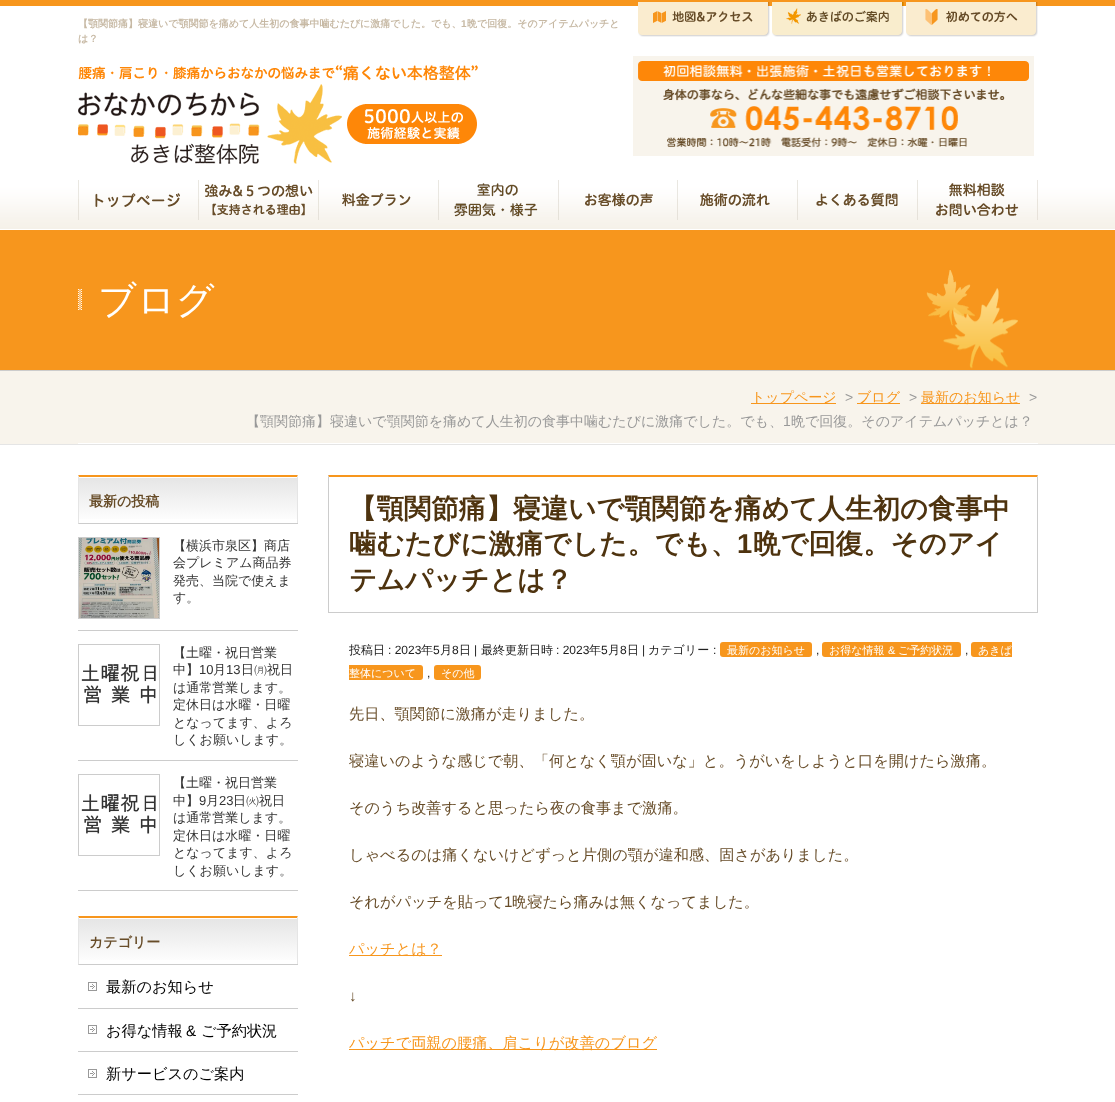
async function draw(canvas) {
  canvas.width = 1115;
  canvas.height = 1102;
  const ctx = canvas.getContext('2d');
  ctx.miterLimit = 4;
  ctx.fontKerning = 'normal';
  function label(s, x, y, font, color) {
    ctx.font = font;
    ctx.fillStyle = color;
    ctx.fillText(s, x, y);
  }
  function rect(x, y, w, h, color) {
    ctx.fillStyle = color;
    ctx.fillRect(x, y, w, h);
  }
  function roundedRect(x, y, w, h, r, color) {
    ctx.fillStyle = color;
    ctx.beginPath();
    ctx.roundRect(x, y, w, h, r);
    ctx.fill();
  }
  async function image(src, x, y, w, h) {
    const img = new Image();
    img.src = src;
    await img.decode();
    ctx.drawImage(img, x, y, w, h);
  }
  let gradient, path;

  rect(0, 0, 1115, 1102, '#fff');
  await image('assets/img1.png', 0, 2, 1115, 228);
  rect(0, 0, 1115, 2, '#f7961d');
  label('【顎関節痛】寝違いで顎関節を痛めて人生初の食事中噛むたびに激痛でした。でも、', 78, 27, 'bold 10px WenQuanYi Zen Hei', '#c7b9a4');
  label('1', 461, 27, 'bold 10px Liberation Sans', '#c7b9a4');
  label('晩で回復。そのアイテムパッチと', 467, 27, 'bold 10px WenQuanYi Zen Hei', '#c7b9a4');
  label('は？', 78, 42, 'bold 10px WenQuanYi Zen Hei', '#c7b9a4');
  await image('assets/img2.png', 638, 2, 132, 35);
  await image('assets/img3.png', 772, 2, 132, 35);
  await image('assets/img4.png', 906, 2, 132, 35);
  await image('assets/img5.png', 78, 65, 400, 99);
  await image('assets/img6.png', 633, 56, 401, 100);
  await image('assets/img7.png', 78, 180, 121, 50);
  await image('assets/img8.png', 199, 180, 120, 50);
  await image('assets/img9.png', 319, 180, 120, 50);
  await image('assets/img10.png', 439, 180, 120, 50);
  await image('assets/img11.png', 559, 180, 119, 50);
  await image('assets/img12.png', 678, 180, 120, 50);
  await image('assets/img13.png', 798, 180, 120, 50);
  await image('assets/img14.png', 918, 180, 120, 50);
  rect(0, 230, 1115, 140, '#f7961d');
  rect(0, 370, 1115, 1, '#ccc');
  await image('assets/img15.png', 78, 289, 4, 21);
  await image('assets/img16.png', 926, 270, 92, 99);
  label('ブログ', 98, 313, '500 38px WenQuanYi Zen Hei', '#fff');
  rect(0, 371, 1115, 73, '#f8f4ec');
  rect(0, 444, 1115, 1, '#e5e5e5');
  rect(78, 443, 960, 1, '#fff');
  rect(751, 403, 85, 1, '#f7961d');
  label('トップページ', 751, 402, '500 14px WenQuanYi Zen Hei', '#f7961d');
  label('>', 845, 402, '14px Liberation Sans', '#999');
  rect(857, 403, 43, 1, '#f7961d');
  label('ブログ', 857, 402, '500 14px WenQuanYi Zen Hei', '#f7961d');
  label('>', 909, 402, '14px Liberation Sans', '#999');
  rect(921, 403, 99, 1, '#f7961d');
  label('最新のお知らせ', 921, 402, '500 14px WenQuanYi Zen Hei', '#f7961d');
  label('>', 1029, 402, '14px Liberation Sans', '#999');
  label('【顎関節痛】寝違いで顎関節を痛めて人生初の食事中噛むたびに激痛でした。でも、', 246, 426, '500 14px WenQuanYi Zen Hei', '#999');
  label('1', 783, 426, '14px Liberation Sans', '#999');
  label('晩で回復。そのアイテムパッチとは？', 791, 426, '500 14px WenQuanYi Zen Hei', '#999');
  gradient = ctx.createLinearGradient(79, 477, 79, 523);
  gradient.addColorStop(0, '#e5e5e5');
  gradient.addColorStop(1, '#fff');
  ctx.fillStyle = gradient;
  ctx.fillRect(79, 478, 218, 41);
  ctx.fillStyle = '#f7961d';
  path = new Path2D('M78 475H298L297 477H79Z');
  ctx.fill(path);
  ctx.fillStyle = '#e5e5e5';
  path = new Path2D('M298 475V524L297 523V477Z');
  ctx.fill(path);
  rect(78, 523, 220, 1, '#ccc');
  ctx.fillStyle = '#e5e5e5';
  path = new Path2D('M78 524V475L79 477V523Z');
  ctx.fill(path);
  label('最新の投稿', 89, 506, 'bold 14px WenQuanYi Zen Hei', '#674c28');
  rect(78, 630, 220, 1, '#ccc');
  ctx.strokeStyle = '#ccc';
  ctx.strokeRect(78.5, 537.5, 81, 81);
  await image('assets/img17.png', 79, 538, 80, 80);
  label('【横浜市泉区】商店', 173, 550, '500 13px WenQuanYi Zen Hei', '#333');
  label('会プレミアム商品券', 173, 567, '500 13px WenQuanYi Zen Hei', '#333');
  label('発売、当院で使えま', 173, 585, '500 13px WenQuanYi Zen Hei', '#333');
  label('す。', 173, 602, '500 13px WenQuanYi Zen Hei', '#333');
  rect(78, 760, 220, 1, '#ccc');
  ctx.strokeRect(78.5, 644.5, 81, 81);
  await image('assets/img18.png', 81, 663, 75, 41);
  label('【土曜・祝日営業', 173, 657, '500 13px WenQuanYi Zen Hei', '#333');
  label('中】', 173, 674, '500 13px WenQuanYi Zen Hei', '#333');
  label('10', 199, 674, '13px Liberation Sans', '#333');
  label('月', 213, 674, '500 13px WenQuanYi Zen Hei', '#333');
  label('13', 226, 674, '13px Liberation Sans', '#333');
  label('日㈪祝日', 241, 674, '500 13px WenQuanYi Zen Hei', '#333');
  label('は通常営業します。', 173, 692, '500 13px WenQuanYi Zen Hei', '#333');
  label('定休日は水曜・日曜', 173, 709, '500 13px WenQuanYi Zen Hei', '#333');
  label('となってます、よろ', 173, 727, '500 13px WenQuanYi Zen Hei', '#333');
  label('しくお願いします。', 173, 744, '500 13px WenQuanYi Zen Hei', '#333');
  rect(78, 890, 220, 1, '#ccc');
  ctx.strokeRect(78.5, 774.5, 81, 81);
  await image('assets/img19.png', 81, 793, 75, 41);
  label('【土曜・祝日営業', 173, 787, '500 13px WenQuanYi Zen Hei', '#333');
  label('中】', 173, 805, '500 13px WenQuanYi Zen Hei', '#333');
  label('9', 199, 805, '13px Liberation Sans', '#333');
  label('月', 206, 805, '500 13px WenQuanYi Zen Hei', '#333');
  label('23', 219, 805, '13px Liberation Sans', '#333');
  label('日㈫祝日', 233, 805, '500 13px WenQuanYi Zen Hei', '#333');
  label('は通常営業します。', 173, 822, '500 13px WenQuanYi Zen Hei', '#333');
  label('定休日は水曜・日曜', 173, 840, '500 13px WenQuanYi Zen Hei', '#333');
  label('となってます、よろ', 173, 857, '500 13px WenQuanYi Zen Hei', '#333');
  label('しくお願いします。', 173, 875, '500 13px WenQuanYi Zen Hei', '#333');
  gradient = ctx.createLinearGradient(79, 918, 79, 964);
  gradient.addColorStop(0, '#e5e5e5');
  gradient.addColorStop(1, '#fff');
  ctx.fillStyle = gradient;
  ctx.fillRect(79, 919, 218, 41);
  ctx.fillStyle = '#f7961d';
  path = new Path2D('M78 916H298L297 918H79Z');
  ctx.fill(path);
  ctx.fillStyle = '#e5e5e5';
  path = new Path2D('M298 916V965L297 964V918Z');
  ctx.fill(path);
  rect(78, 964, 220, 1, '#ccc');
  ctx.fillStyle = '#e5e5e5';
  path = new Path2D('M78 965V916L79 918V964Z');
  ctx.fill(path);
  label('カテゴリー', 89, 947, 'bold 14px WenQuanYi Zen Hei', '#674c28');
  rect(78, 1008, 220, 1, '#ccc');
  await image('assets/img20.png', 88, 982, 9, 9);
  label('最新のお知らせ', 106, 992, '500 15.2px WenQuanYi Zen Hei', '#000');
  rect(78, 1051, 220, 1, '#ccc');
  await image('assets/img20.png', 88, 1025, 9, 9);
  label('お得な情報', 106, 1036, '500 15.2px WenQuanYi Zen Hei', '#000');
  label('&', 186, 1036, '15.2px Liberation Sans', '#000');
  label('ご予約状況', 201, 1036, '500 15.2px WenQuanYi Zen Hei', '#000');
  await image('assets/img20.png', 88, 1069, 9, 9);
  label('新サービスのご案内', 106, 1079, '500 15.2px WenQuanYi Zen Hei', '#000');
  rect(78, 1094, 220, 1, '#ccc');
  ctx.fillStyle = '#f7961d';
  path = new Path2D('M328 475H1038L1037 477H329Z');
  ctx.fill(path);
  ctx.fillStyle = '#ccc';
  path = new Path2D('M1038 475V613L1037 612V477Z');
  ctx.fill(path);
  rect(328, 612, 710, 1, '#ccc');
  path = new Path2D('M328 613V475L329 477V612Z');
  ctx.fill(path);
  label('【顎関節痛】寝違いで顎関節を痛めて人生初の食事中', 349, 518, 'bold 27.4px WenQuanYi Zen Hei', '#4e330f');
  label('噛むたびに激痛でした。でも、', 349, 553, 'bold 27.4px WenQuanYi Zen Hei', '#4e330f');
  label('1', 737, 553, 'bold 27.4px Liberation Sans', '#4e330f');
  label('晩で回復。そのアイ', 753, 553, 'bold 27.4px WenQuanYi Zen Hei', '#4e330f');
  label('テムパッチとは？', 349, 589, 'bold 27.4px WenQuanYi Zen Hei', '#4e330f');
  label('投稿日', 349, 654, '500 12px WenQuanYi Zen Hei', '#212121');
  label(': 2023', 388, 654, '12px Liberation Sans', '#212121');
  label('年', 421, 654, '500 12px WenQuanYi Zen Hei', '#212121');
  label('5', 433, 654, '12px Liberation Sans', '#212121');
  label('月', 440, 654, '500 12px WenQuanYi Zen Hei', '#212121');
  label('8', 452, 654, '12px Liberation Sans', '#212121');
  label('日', 459, 654, '500 12px WenQuanYi Zen Hei', '#212121');
  label('|', 474, 654, '12px Liberation Sans', '#212121');
  label('最終更新日時', 481, 654, '500 12px WenQuanYi Zen Hei', '#212121');
  label(': 2023', 556, 654, '12px Liberation Sans', '#212121');
  label('年', 589, 654, '500 12px WenQuanYi Zen Hei', '#212121');
  label('5', 601, 654, '12px Liberation Sans', '#212121');
  label('月', 608, 654, '500 12px WenQuanYi Zen Hei', '#212121');
  label('8', 620, 654, '12px Liberation Sans', '#212121');
  label('日', 627, 654, '500 12px WenQuanYi Zen Hei', '#212121');
  label('|', 642, 654, '12px Liberation Sans', '#212121');
  label('カテゴリー', 648, 654, '500 12px WenQuanYi Zen Hei', '#212121');
  label(':', 713, 654, '12px Liberation Sans', '#212121');
  roundedRect(720, 642, 92, 15, 3, '#f7961d');
  label('最新のお知らせ', 727, 654, '500 11px WenQuanYi Zen Hei', '#fff');
  label(',', 816, 654, '12px Liberation Sans', '#212121');
  roundedRect(822, 642, 139, 15, 3, '#f7961d');
  label('お得な情報', 829, 654, '500 11px WenQuanYi Zen Hei', '#fff');
  label('&', 888, 654, '11px Liberation Sans', '#fff');
  label('ご予約状況', 898, 654, '500 11px WenQuanYi Zen Hei', '#fff');
  label(',', 965, 654, '12px Liberation Sans', '#212121');
  ctx.fillStyle = '#f7961d';
  ctx.beginPath();
  ctx.roundRect(971, 642, 41, 15, [3, 0, 0, 3]);
  ctx.fill();
  label('あきば', 978, 654, '500 11px WenQuanYi Zen Hei', '#fff');
  ctx.fillStyle = '#f7961d';
  ctx.beginPath();
  ctx.roundRect(349, 665, 74, 15, [0, 3, 3, 0]);
  ctx.fill();
  label('整体について', 349, 677, '500 11px WenQuanYi Zen Hei', '#fff');
  label(',', 427, 677, '12px Liberation Sans', '#212121');
  roundedRect(434, 665, 47, 15, 3, '#f7961d');
  label('その他', 441, 677, '500 11px WenQuanYi Zen Hei', '#fff');
  label('先日、顎関節に激痛が走りました。', 349, 719, '500 15.2px WenQuanYi Zen Hei', '#674c28');
  label('寝違いのような感じで朝、「何となく顎が固いな」と。うがいをしようと口を開けたら激痛。', 349, 766, '500 15.2px WenQuanYi Zen Hei', '#674c28');
  label('そのうち改善すると思ったら夜の食事まで激痛。', 349, 813, '500 15.2px WenQuanYi Zen Hei', '#674c28');
  label('しゃべるのは痛くないけどずっと片側の顎が違和感、固さがありました。', 349, 860, '500 15.2px WenQuanYi Zen Hei', '#674c28');
  label('それがパッチを貼って', 349, 907, '500 15.2px WenQuanYi Zen Hei', '#674c28');
  label('1', 504, 907, '15.2px Liberation Sans', '#674c28');
  label('晩寝たら痛みは無くなってました。', 512, 907, '500 15.2px WenQuanYi Zen Hei', '#674c28');
  rect(349, 955, 93, 1, '#f7961d');
  label('パッチとは？', 349, 954, '500 15.2px WenQuanYi Zen Hei', '#f7961d');
  label('↓', 349, 1001, '15.2px Liberation Sans', '#674c28');
  rect(349, 1049, 308, 1, '#f7961d');
  label('パッチで両親の腰痛、肩こりが改善のブログ', 349, 1048, '500 15.2px WenQuanYi Zen Hei', '#f7961d');
}

draw(document.querySelector('canvas'));
